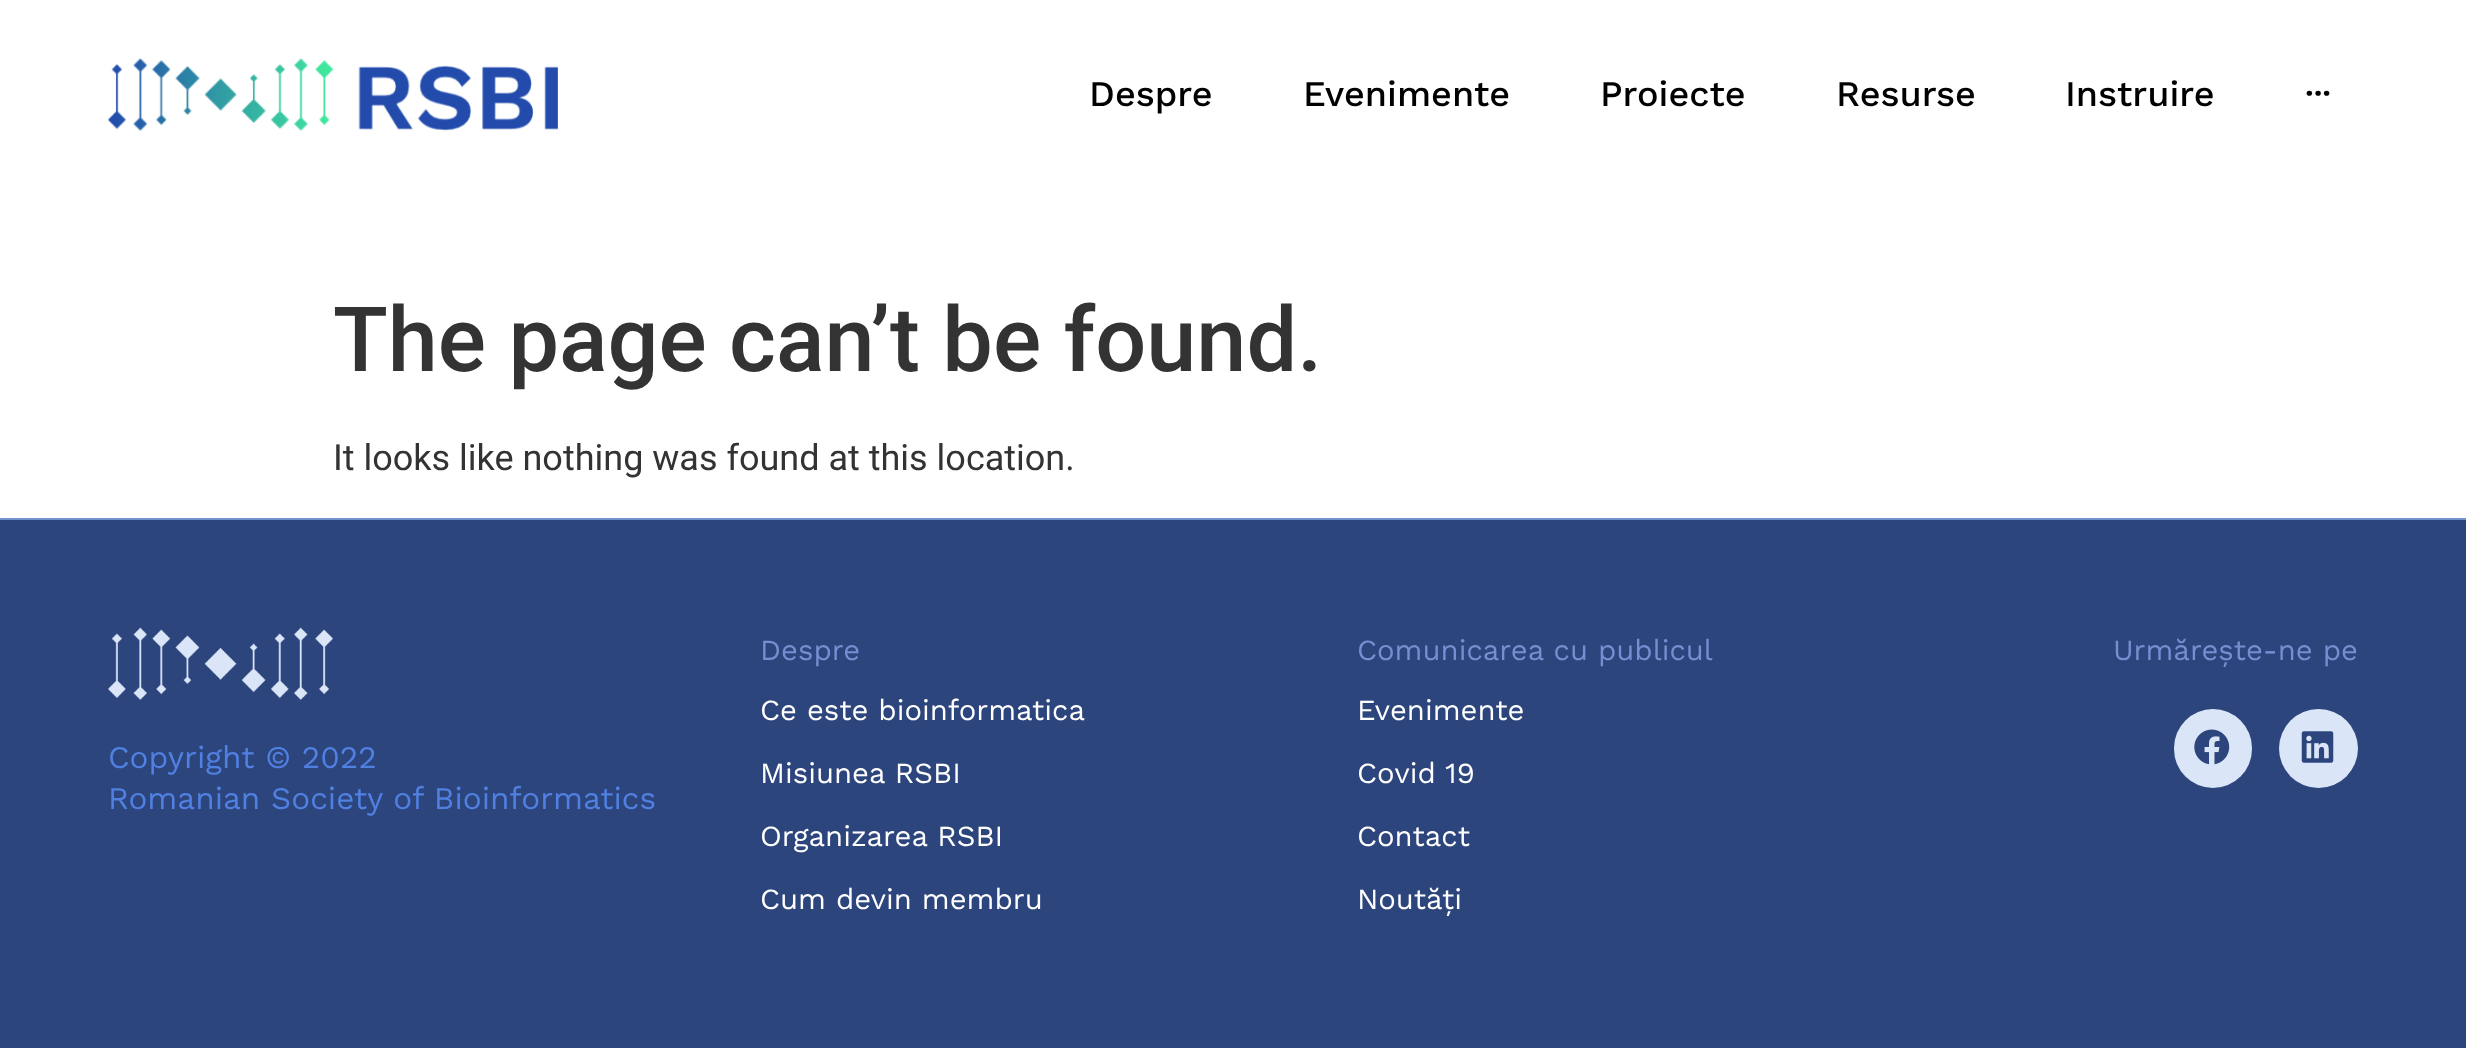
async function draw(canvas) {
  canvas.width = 2466;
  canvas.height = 1048;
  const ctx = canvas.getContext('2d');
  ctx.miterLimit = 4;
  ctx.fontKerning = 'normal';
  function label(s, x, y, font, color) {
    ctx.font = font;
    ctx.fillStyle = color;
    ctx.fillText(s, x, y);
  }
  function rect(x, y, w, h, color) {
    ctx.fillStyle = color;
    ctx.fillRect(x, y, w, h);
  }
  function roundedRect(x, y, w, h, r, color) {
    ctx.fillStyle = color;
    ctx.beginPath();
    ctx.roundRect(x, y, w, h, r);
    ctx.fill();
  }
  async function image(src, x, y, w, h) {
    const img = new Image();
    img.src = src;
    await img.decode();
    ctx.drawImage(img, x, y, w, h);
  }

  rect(0, 0, 2466, 1048, '#fff');
  await image('assets/img1.png', 108, 58, 450, 73);
  label('Despre', 1089, 106, '500 36px Work Sans', '#000');
  label('Evenimente', 1303, 106, '500 36px Work Sans', '#000');
  label('Proiecte', 1600, 106, '500 36px Work Sans', '#000');
  label('Resurse', 1836, 106, '500 36px Work Sans', '#000');
  label('Instruire', 2065, 106, '500 36px Work Sans', '#000');
  label('···', 2305, 106, '500 36px Work Sans', '#000');
  label('The page can’t be found.', 333, 371, '500 90px Roboto', '#333');
  label('It looks like nothing was found at this location.', 333, 470, '36px Roboto', '#333');
  rect(0, 520, 2466, 528, '#2d457d');
  rect(0, 518, 2466, 2, '#7490d1');
  await image('assets/img2.png', 108, 627, 225, 73);
  label('Copyright © 2022', 108, 768, '31.5px Work Sans', '#5080e1');
  label('Romanian Society of Bioinformatics', 108, 809, '31.5px Work Sans', '#5080e1');
  label('Despre', 760, 660, '29.25px Work Sans', '#7490d1');
  label('Ce este bioinformatica', 760, 720, '29.25px Work Sans', '#fff');
  label('Misiunea RSBI', 760, 783, '29.25px Work Sans', '#fff');
  label('Organizarea RSBI', 760, 846, '29.25px Work Sans', '#fff');
  label('Cum devin membru', 760, 909, '29.25px Work Sans', '#fff');
  label('Comunicarea cu publicul', 1357, 660, '29.25px Work Sans', '#7490d1');
  label('Evenimente', 1357, 720, '29.25px Work Sans', '#fff');
  label('Covid 19', 1357, 783, '29.25px Work Sans', '#fff');
  label('Contact', 1357, 846, '29.25px Work Sans', '#fff');
  label('Noutăți', 1357, 909, '29.25px Work Sans', '#fff');
  label('Urmărește-ne pe', 2113, 660, '29.25px Work Sans', '#7490d1');
  roundedRect(2174, 709, 78, 79, 39, '#dae5f8');
  await image('assets/img3.png', 2194, 729, 36, 36);
  ctx.beginPath();
  ctx.arc(2318.5, 748.5, 39.5, 0, 2 * Math.PI);
  ctx.fill();
  await image('assets/img4.png', 2301, 731, 33, 32);
}

draw(document.querySelector('canvas'));
